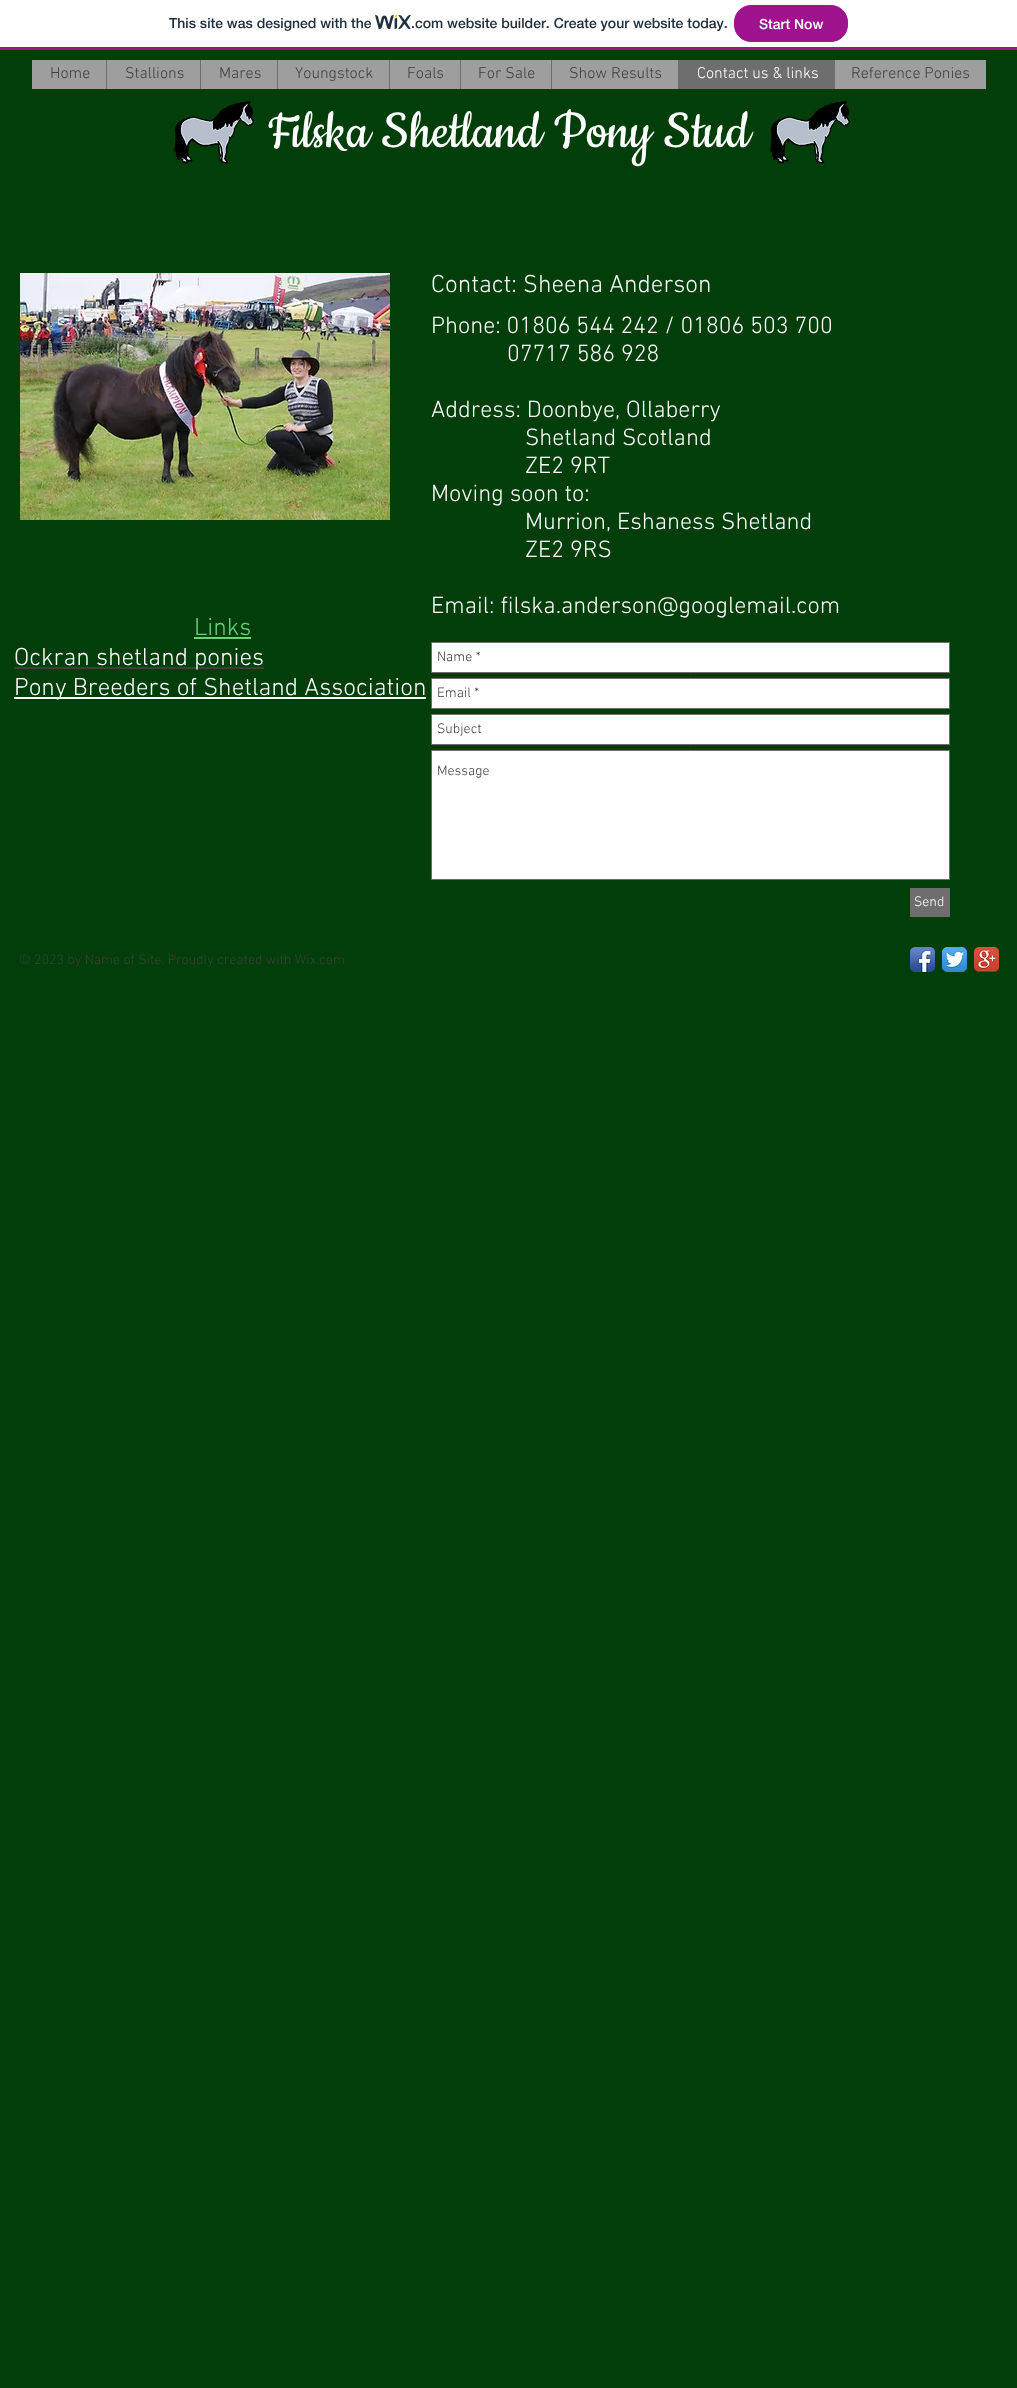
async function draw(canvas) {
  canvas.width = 1017;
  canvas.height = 2388;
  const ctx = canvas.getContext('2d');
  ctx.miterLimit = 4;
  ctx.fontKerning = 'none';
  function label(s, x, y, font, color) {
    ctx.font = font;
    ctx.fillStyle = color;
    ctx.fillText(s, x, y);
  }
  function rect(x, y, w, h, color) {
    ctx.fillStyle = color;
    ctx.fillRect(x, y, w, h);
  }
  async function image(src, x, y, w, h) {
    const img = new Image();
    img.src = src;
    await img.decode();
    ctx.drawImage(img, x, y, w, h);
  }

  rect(0, 0, 1017, 2388, '#fff');
  rect(0, 47, 1017, 3, '#a0138e');
  label('This site was designed with the', 169, 28, '500 14px "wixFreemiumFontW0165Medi"', '#20303c');
  await image('assets/img1.png', 375, 15, 36, 15);
  label('.com website builder. Create your website today.', 411, 28, '500 14px "wixFreemiumFontW0165Medi"', '#20303c');
  ctx.fillStyle = '#a0138e';
  ctx.beginPath();
  ctx.roundRect(734.5, 5.5, 113, 36, 16.5);
  ctx.fill();
  ctx.strokeStyle = '#a0138e';
  ctx.stroke();
  label('Start Now', 759, 29, '500 14px "wixFreemiumFontW0165Medi"', '#fff');
  rect(0, 50, 1017, 2338, '#013e09');
  rect(32, 60, 954, 29, '#9e9e9e');
  label('Home', 50, 78, '300 16px "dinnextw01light"', '#3e3e3e');
  rect(106, 60, 1, 29, '#6e6e6e');
  label('Stallions', 125, 78, '300 16px "dinnextw01light"', '#3e3e3e');
  rect(200, 60, 1, 29, '#6e6e6e');
  label('Mares', 219, 78, '300 16px "dinnextw01light"', '#3e3e3e');
  rect(277, 60, 1, 29, '#6e6e6e');
  label('Youngstock', 295, 78, '300 16px "dinnextw01light"', '#3e3e3e');
  rect(389, 60, 1, 29, '#6e6e6e');
  label('Foals', 407, 78, '300 16px "dinnextw01light"', '#3e3e3e');
  rect(460, 60, 1, 29, '#6e6e6e');
  label('For Sale', 478, 78, '300 16px "dinnextw01light"', '#3e3e3e');
  rect(551, 60, 1, 29, '#6e6e6e');
  label('Show Results', 569, 78, '300 16px "dinnextw01light"', '#3e3e3e');
  rect(678, 60, 157, 29, '#6e6e6e');
  label('Contact us & links', 697, 78, '300 16px "dinnextw01light"', '#fff');
  label('Reference Ponies', 851, 78, '300 16px "dinnextw01light"', '#3e3e3e');
  await image('assets/img2.png', 174, 100, 80, 64);
  label('Filska Shetland Pony Stud', 268, 147, '60px Cookie', '#fff');
  await image('assets/img2.png', 770, 100, 80, 64);
  await image('assets/img3.png', 20, 273, 370, 247);
  label('Contact: Sheena Anderson', 431, 292, '300 25px "dinnextw01light"', '#fff');
  label('Phone: 01806 544 242 / 01806 503 700', 431, 333, '300 24px "dinnextw01light"', '#fff');
  label('07717 586 928', 507, 361, '300 24px "dinnextw01light"', '#fff');
  label('Address: Doonbye, Ollaberry', 431, 417, '300 24px "dinnextw01light"', '#fff');
  label('Shetland Scotland', 525, 445, '300 24px "dinnextw01light"', '#fff');
  label('ZE2 9RT', 525, 473, '300 24px "dinnextw01light"', '#fff');
  label('Moving soon to:', 431, 501, '300 24px "dinnextw01light"', '#fff');
  label('Murrion, Eshaness Shetland', 525, 529, '300 24px "dinnextw01light"', '#fff');
  label('ZE2 9RS', 525, 557, '300 24px "dinnextw01light"', '#fff');
  label('Email: filska.anderson@googlemail.com', 431, 613, '300 24px "dinnextw01light"', '#fff');
  label('Links', 194, 635, '300 25px "dinnextw01light"', '#6bd279');
  rect(194, 637, 57, 2, '#6bd279');
  rect(14, 667, 250, 2, '#3e3e3e');
  label('Ockran shetland ponies', 14, 665, '300 25px "dinnextw01light"', '#fff');
  rect(14, 697, 412, 2, '#fff');
  label('Pony Breeders of Shetland Association', 14, 695, '300 25px "dinnextw01light"', '#fff');
  ctx.beginPath();
  ctx.rect(431.5, 642.5, 518, 30);
  ctx.fill();
  ctx.strokeStyle = '#6e6e6e';
  ctx.stroke();
  label('Name *', 437, 661, '300 14px "dinnextw01light"', '#3e3e3e');
  ctx.fillStyle = '#fff';
  ctx.beginPath();
  ctx.rect(431.5, 678.5, 518, 30);
  ctx.fill();
  ctx.stroke();
  label('Email *', 437, 697, '300 14px "dinnextw01light"', '#3e3e3e');
  ctx.fillStyle = '#fff';
  ctx.beginPath();
  ctx.rect(431.5, 714.5, 518, 30);
  ctx.fill();
  ctx.stroke();
  label('Subject', 437, 733, '300 14px "dinnextw01light"', '#3e3e3e');
  ctx.fillStyle = '#fff';
  ctx.beginPath();
  ctx.rect(431.5, 750.5, 518, 129);
  ctx.fill();
  ctx.stroke();
  label('Message', 437, 775, '300 14px "dinnextw01light"', '#3e3e3e');
  rect(910, 888, 40, 29, '#6e6e6e');
  label('Send', 914, 906, '300 14px "dinnextw01light"', '#fff');
  label('© 2023 by Name of Site. Proudly created with Wix.com', 19, 964, '300 14px "dinnextw01light"', '#3e3e3e');
  await image('assets/img4.png', 910, 947, 25, 25);
  await image('assets/img5.png', 942, 947, 25, 25);
  await image('assets/img6.png', 974, 947, 25, 25);
}

draw(document.querySelector('canvas'));
